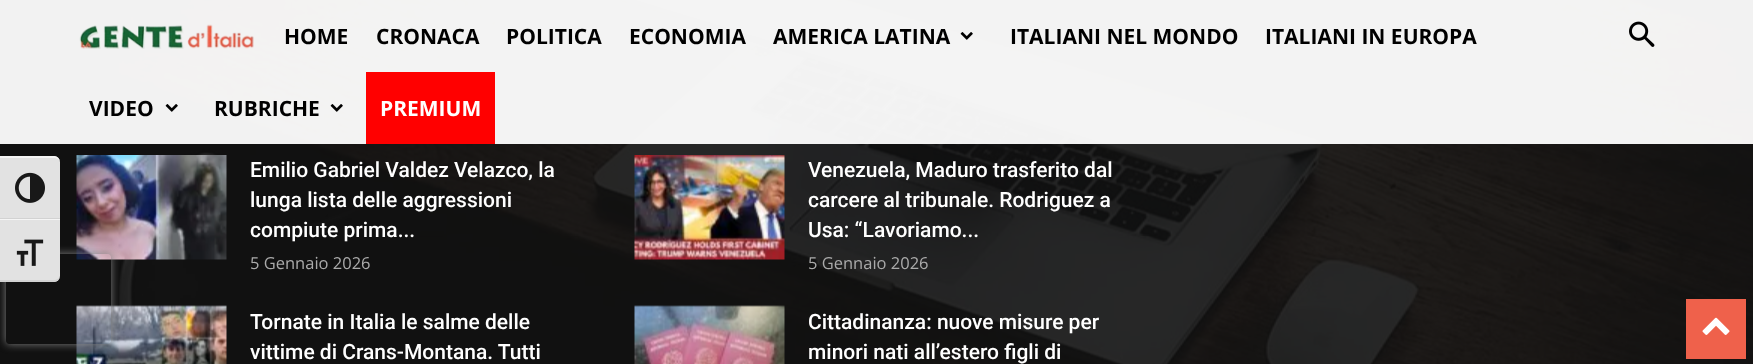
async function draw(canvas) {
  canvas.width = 1753;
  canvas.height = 364;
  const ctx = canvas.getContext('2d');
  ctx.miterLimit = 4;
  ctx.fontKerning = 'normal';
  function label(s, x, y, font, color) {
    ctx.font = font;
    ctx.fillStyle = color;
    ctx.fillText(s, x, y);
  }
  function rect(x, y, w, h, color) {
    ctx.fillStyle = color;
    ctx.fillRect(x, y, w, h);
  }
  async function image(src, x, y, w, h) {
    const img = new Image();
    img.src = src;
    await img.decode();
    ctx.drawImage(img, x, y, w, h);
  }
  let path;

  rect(0, 0, 1753, 364, '#111');
  ctx.fillStyle = '#e2e2e2';
  ctx.beginPath();
  ctx.roundRect(0, 156, 60, 63, [0, 6, 0, 0]);
  ctx.fill();
  ctx.fillStyle = '#f5f5f5';
  path = new Path2D('M0 156V158H54C57 158 60 160 60 162C60 159 57 156 54 156Z');
  ctx.fill(path);
  rect(0, 218, 60, 1, '#d2d2d2');
  await image('assets/img1.png', 15, 172, 30, 31);
  await image('assets/img8.png', 119, 0, 1634, 364);
  await image('assets/img9.png', 76, 155, 151, 105);
  await image('assets/img11.png', 76, 305, 151, 59);
  ctx.save();
  path = new Path2D('M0 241H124V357H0ZM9 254H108C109.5 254 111 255.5 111 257V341C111 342.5 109.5 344 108 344H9C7.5 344 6 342.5 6 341V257C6 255.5 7.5 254 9 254Z');
  ctx.clip(path, 'evenodd');
  ctx.fillStyle = '#808080';
  ctx.filter = 'blur(4px)';
  ctx.beginPath();
  ctx.roundRect(6, 254, 105, 90, 3);
  ctx.fill();
  ctx.filter = 'none';
  ctx.restore();
  ctx.fillStyle = '#e2e2e2';
  ctx.beginPath();
  ctx.roundRect(0, 219, 60, 63, [0, 0, 6, 0]);
  ctx.fill();
  rect(0, 219, 60, 1, '#f5f5f5');
  ctx.fillStyle = '#d2d2d2';
  path = new Path2D('M0 280V282H54C57 282 60 279 60 276C60 278 57 280 54 280Z');
  ctx.fill(path);
  await image('assets/img2.png', 16, 239, 28, 27);
  rect(0, 0, 1753, 144, '#fffffff2');
  await image('assets/img3.png', 79, 24, 175, 25);
  label('HOME', 284, 44, 'bold 21px Open Sans', '#000');
  label('CRONACA', 376, 44, 'bold 21px Open Sans', '#000');
  label('POLITICA', 506, 44, 'bold 21px Open Sans', '#000');
  label('ECONOMIA', 629, 44, 'bold 21px Open Sans', '#000');
  label('AMERICA LATINA', 773, 44, 'bold 21px Open Sans', '#000');
  await image('assets/img4.png', 960, 32, 13, 8);
  label('ITALIANI NEL MONDO', 1010, 44, 'bold 21px Open Sans', '#000');
  label('ITALIANI IN EUROPA', 1265, 44, 'bold 21px Open Sans', '#000');
  label('VIDEO', 89, 116, 'bold 21px Open Sans', '#000');
  await image('assets/img5.png', 165, 104, 13, 8);
  label('RUBRICHE', 214, 116, 'bold 21px Open Sans', '#000');
  await image('assets/img6.png', 330, 104, 13, 8);
  rect(366, 72, 129, 72, '#f00');
  label('PREMIUM', 380, 116, 'bold 21px Open Sans', '#fff');
  await image('assets/img7.png', 1629, 21, 26, 26);
  label('Emilio Gabriel Valdez Velazco, la', 250, 177, '500 21px Roboto', '#fff');
  label('lunga lista delle aggressioni', 250, 207, '500 21px Roboto', '#fff');
  label('compiute prima...', 250, 237, '500 21px Roboto', '#fff');
  label('5 Gennaio 2026', 250, 269, '16.5px Open Sans', '#aaa');
  await image('assets/img10.png', 634, 155, 151, 105);
  label('Venezuela, Maduro trasferito dal', 808, 177, '500 21px Roboto', '#fff');
  label('carcere al tribunale. Rodriguez a', 808, 207, '500 21px Roboto', '#fff');
  label('Usa: “Lavoriamo...', 808, 237, '500 21px Roboto', '#fff');
  label('5 Gennaio 2026', 808, 269, '16.5px Open Sans', '#aaa');
  label('Tornate in Italia le salme delle', 250, 329, '500 21px Roboto', '#fff');
  label('vittime di Crans-Montana. Tutti', 250, 359, '500 21px Roboto', '#fff');
  await image('assets/img12.png', 634, 305, 151, 59);
  label('Cittadinanza: nuove misure per', 808, 329, '500 21px Roboto', '#fff');
  label('minori nati all’estero figli di', 808, 359, '500 21px Roboto', '#fff');
  rect(1686, 299, 60, 60, '#ef614b');
  await image('assets/img13.png', 1702, 317, 28, 18);
}

draw(document.querySelector('canvas'));
